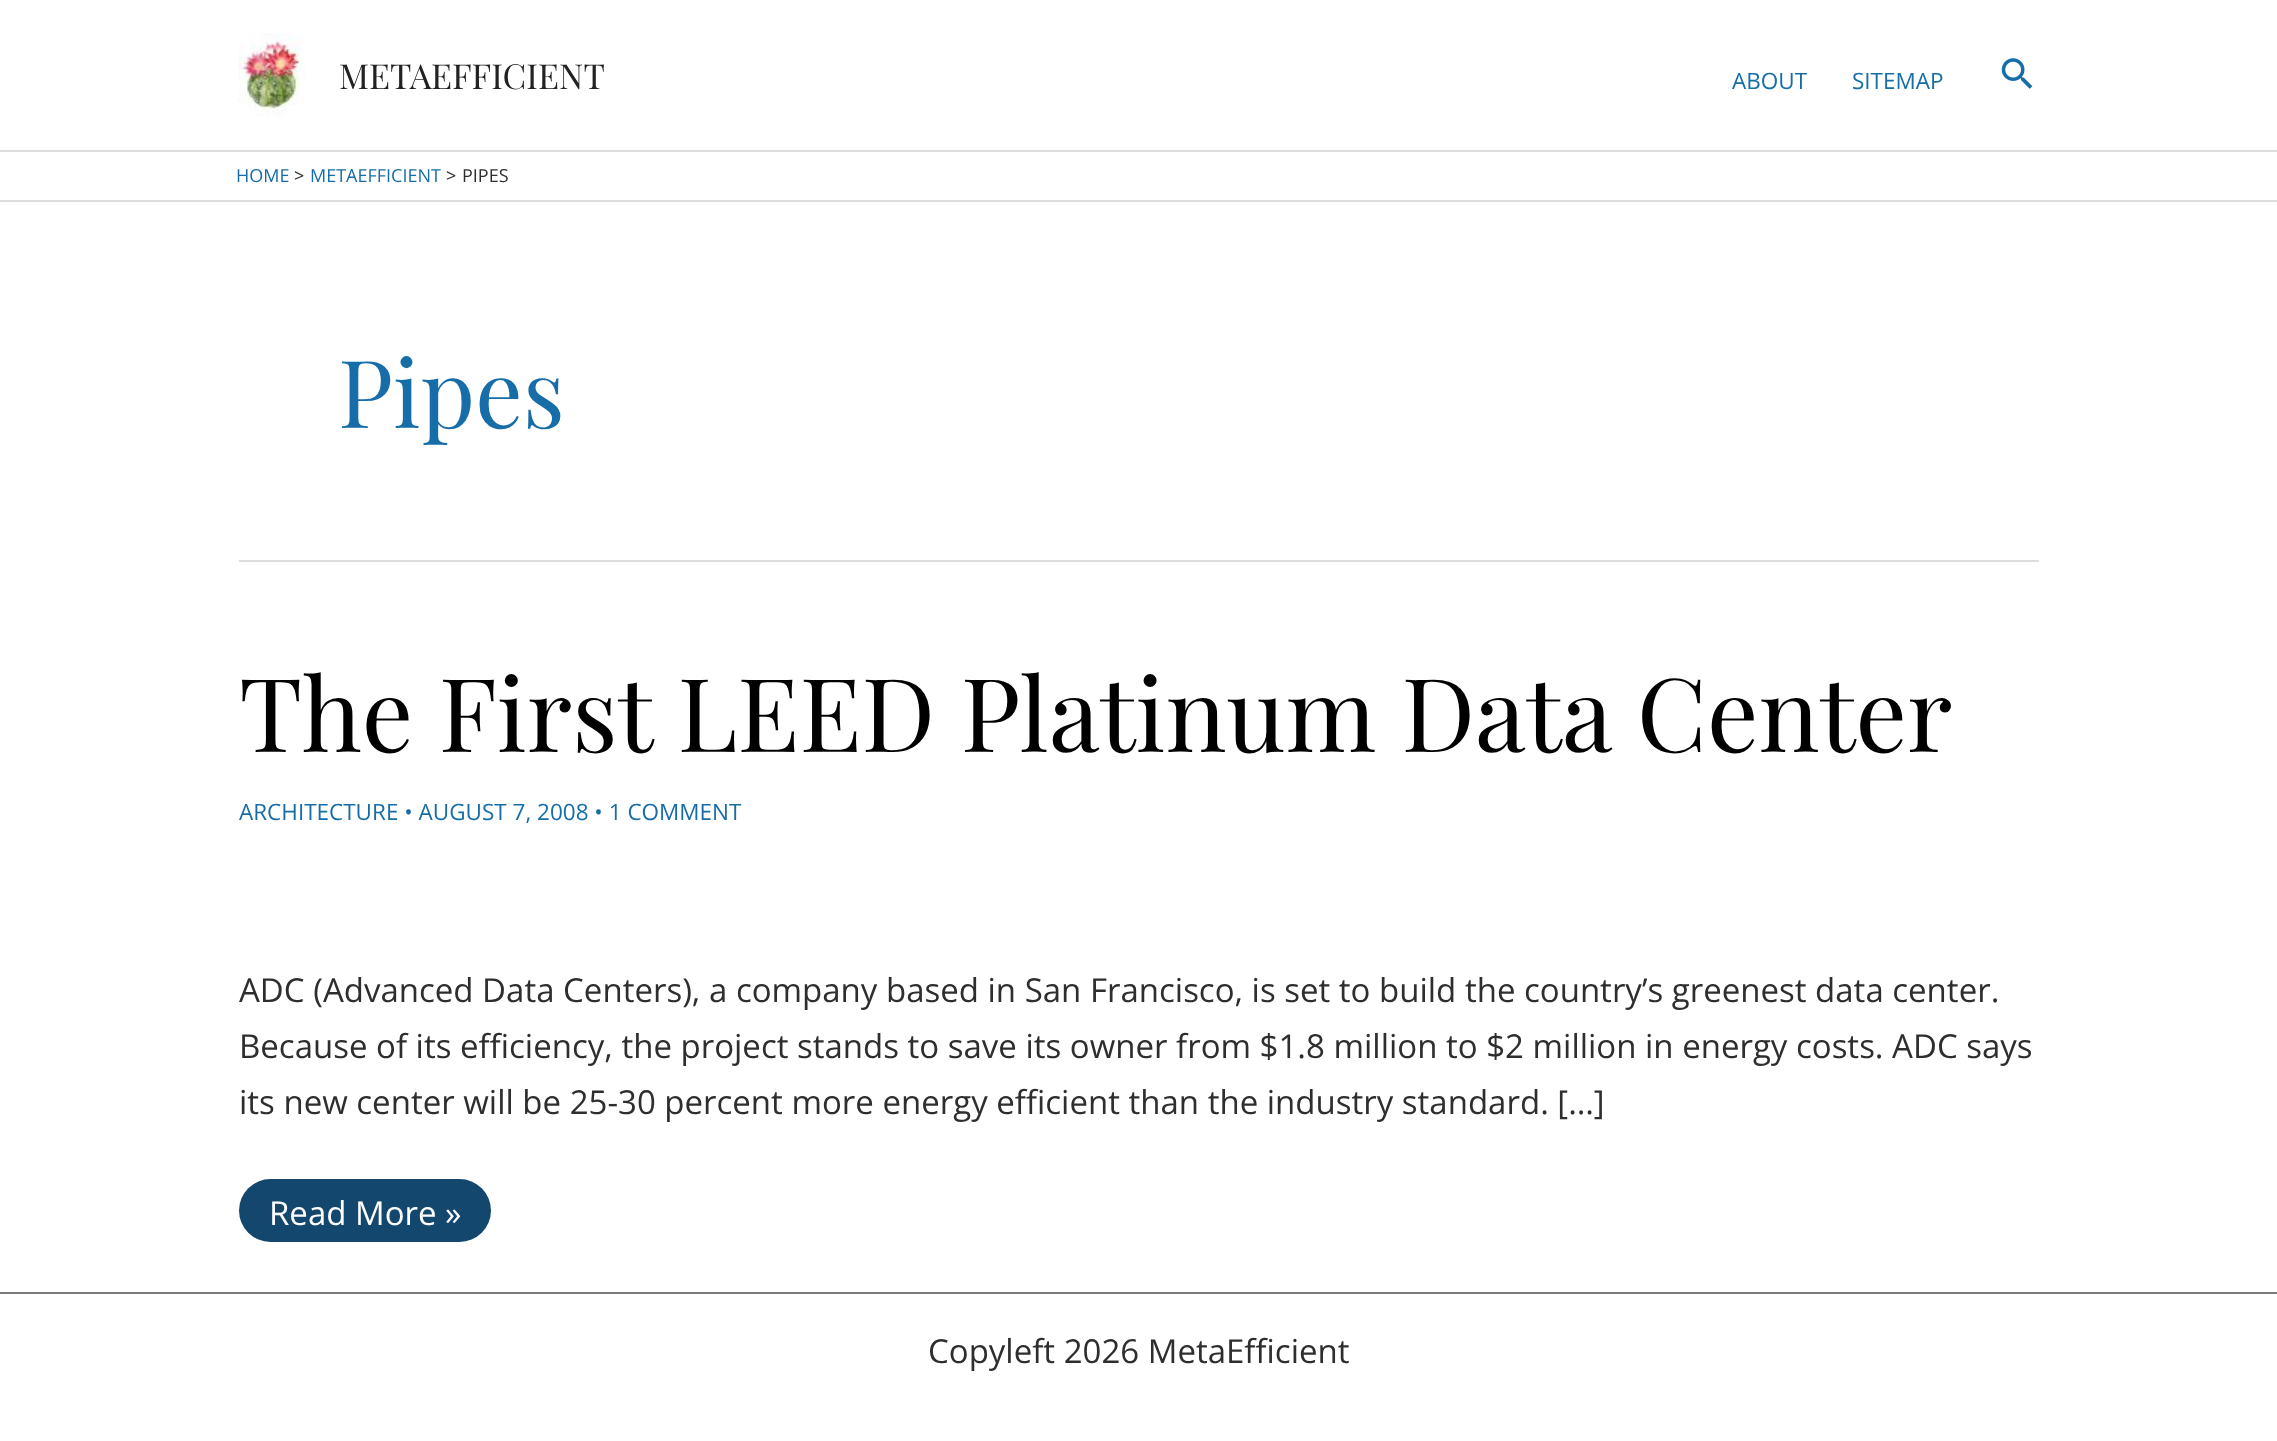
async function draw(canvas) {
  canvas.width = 2277;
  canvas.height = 1441;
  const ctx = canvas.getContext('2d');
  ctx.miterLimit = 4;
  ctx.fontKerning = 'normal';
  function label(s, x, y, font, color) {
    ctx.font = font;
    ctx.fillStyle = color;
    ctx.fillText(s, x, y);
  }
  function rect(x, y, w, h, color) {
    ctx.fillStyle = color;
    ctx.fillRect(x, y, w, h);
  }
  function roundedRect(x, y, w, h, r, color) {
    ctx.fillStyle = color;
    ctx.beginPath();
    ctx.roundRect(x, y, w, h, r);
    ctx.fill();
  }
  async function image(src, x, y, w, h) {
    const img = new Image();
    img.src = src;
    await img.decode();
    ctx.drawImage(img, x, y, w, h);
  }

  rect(0, 0, 2277, 1441, '#fff');
  rect(0, 150, 2277, 2, '#ddd');
  await image('assets/img1.png', 238, 33, 68, 84);
  label('METAEFFICIENT', 339, 89, '34.5px Playfair Display', '#222');
  label('ABOUT', 1732, 89, '22.5px Open Sans', '#166da8');
  label('SITEMAP', 1852, 89, '22.5px Open Sans', '#166da8');
  await image('assets/img2.png', 2001, 58, 32, 31);
  rect(0, 200, 2277, 2, '#ddd');
  label('HOME', 236, 182, '18px Open Sans', '#166da8');
  label('>', 294, 182, '18px Open Sans', '#2e2e2e');
  label('METAEFFICIENT', 310, 182, '18px Open Sans', '#166da8');
  label('>', 446, 182, '18px Open Sans', '#2e2e2e');
  label('PIPES', 462, 182, '18px Open Sans', '#2e2e2e');
  rect(239, 560, 1800, 2, '#ddd');
  label('Pipes', 338, 428, '94px Playfair Display', '#166da8');
  label('The First LEED Platinum Data Center', 239, 752, '102px Playfair Display', '#000');
  label('ARCHITECTURE • AUGUST 7, 2008 • 1 COMMENT', 239, 820, '22.5px Open Sans', '#166da8');
  label('ADC (Advanced Data Centers), a company based in San Francisco, is set to build the country’s greenest data center.', 239, 1002, '33px Open Sans', '#2e2e2e');
  label('Because of its efficiency, the project stands to save its owner from $1.8 million to $2 million in energy costs. ADC says', 239, 1058, '33px Open Sans', '#2e2e2e');
  label('its new center will be 25-30 percent more energy efficient than the industry standard. […]', 239, 1114, '33px Open Sans', '#2e2e2e');
  roundedRect(239, 1179, 252, 63, 31.5, '#13476e');
  label('Read More »', 269, 1225, '33px Open Sans', '#fff');
  rect(0, 1292, 2277, 2, '#7a7a7a');
  label('Copyleft 2026 MetaEfficient', 928, 1363, '33px Open Sans', '#2e2e2e');
}

draw(document.querySelector('canvas'));
